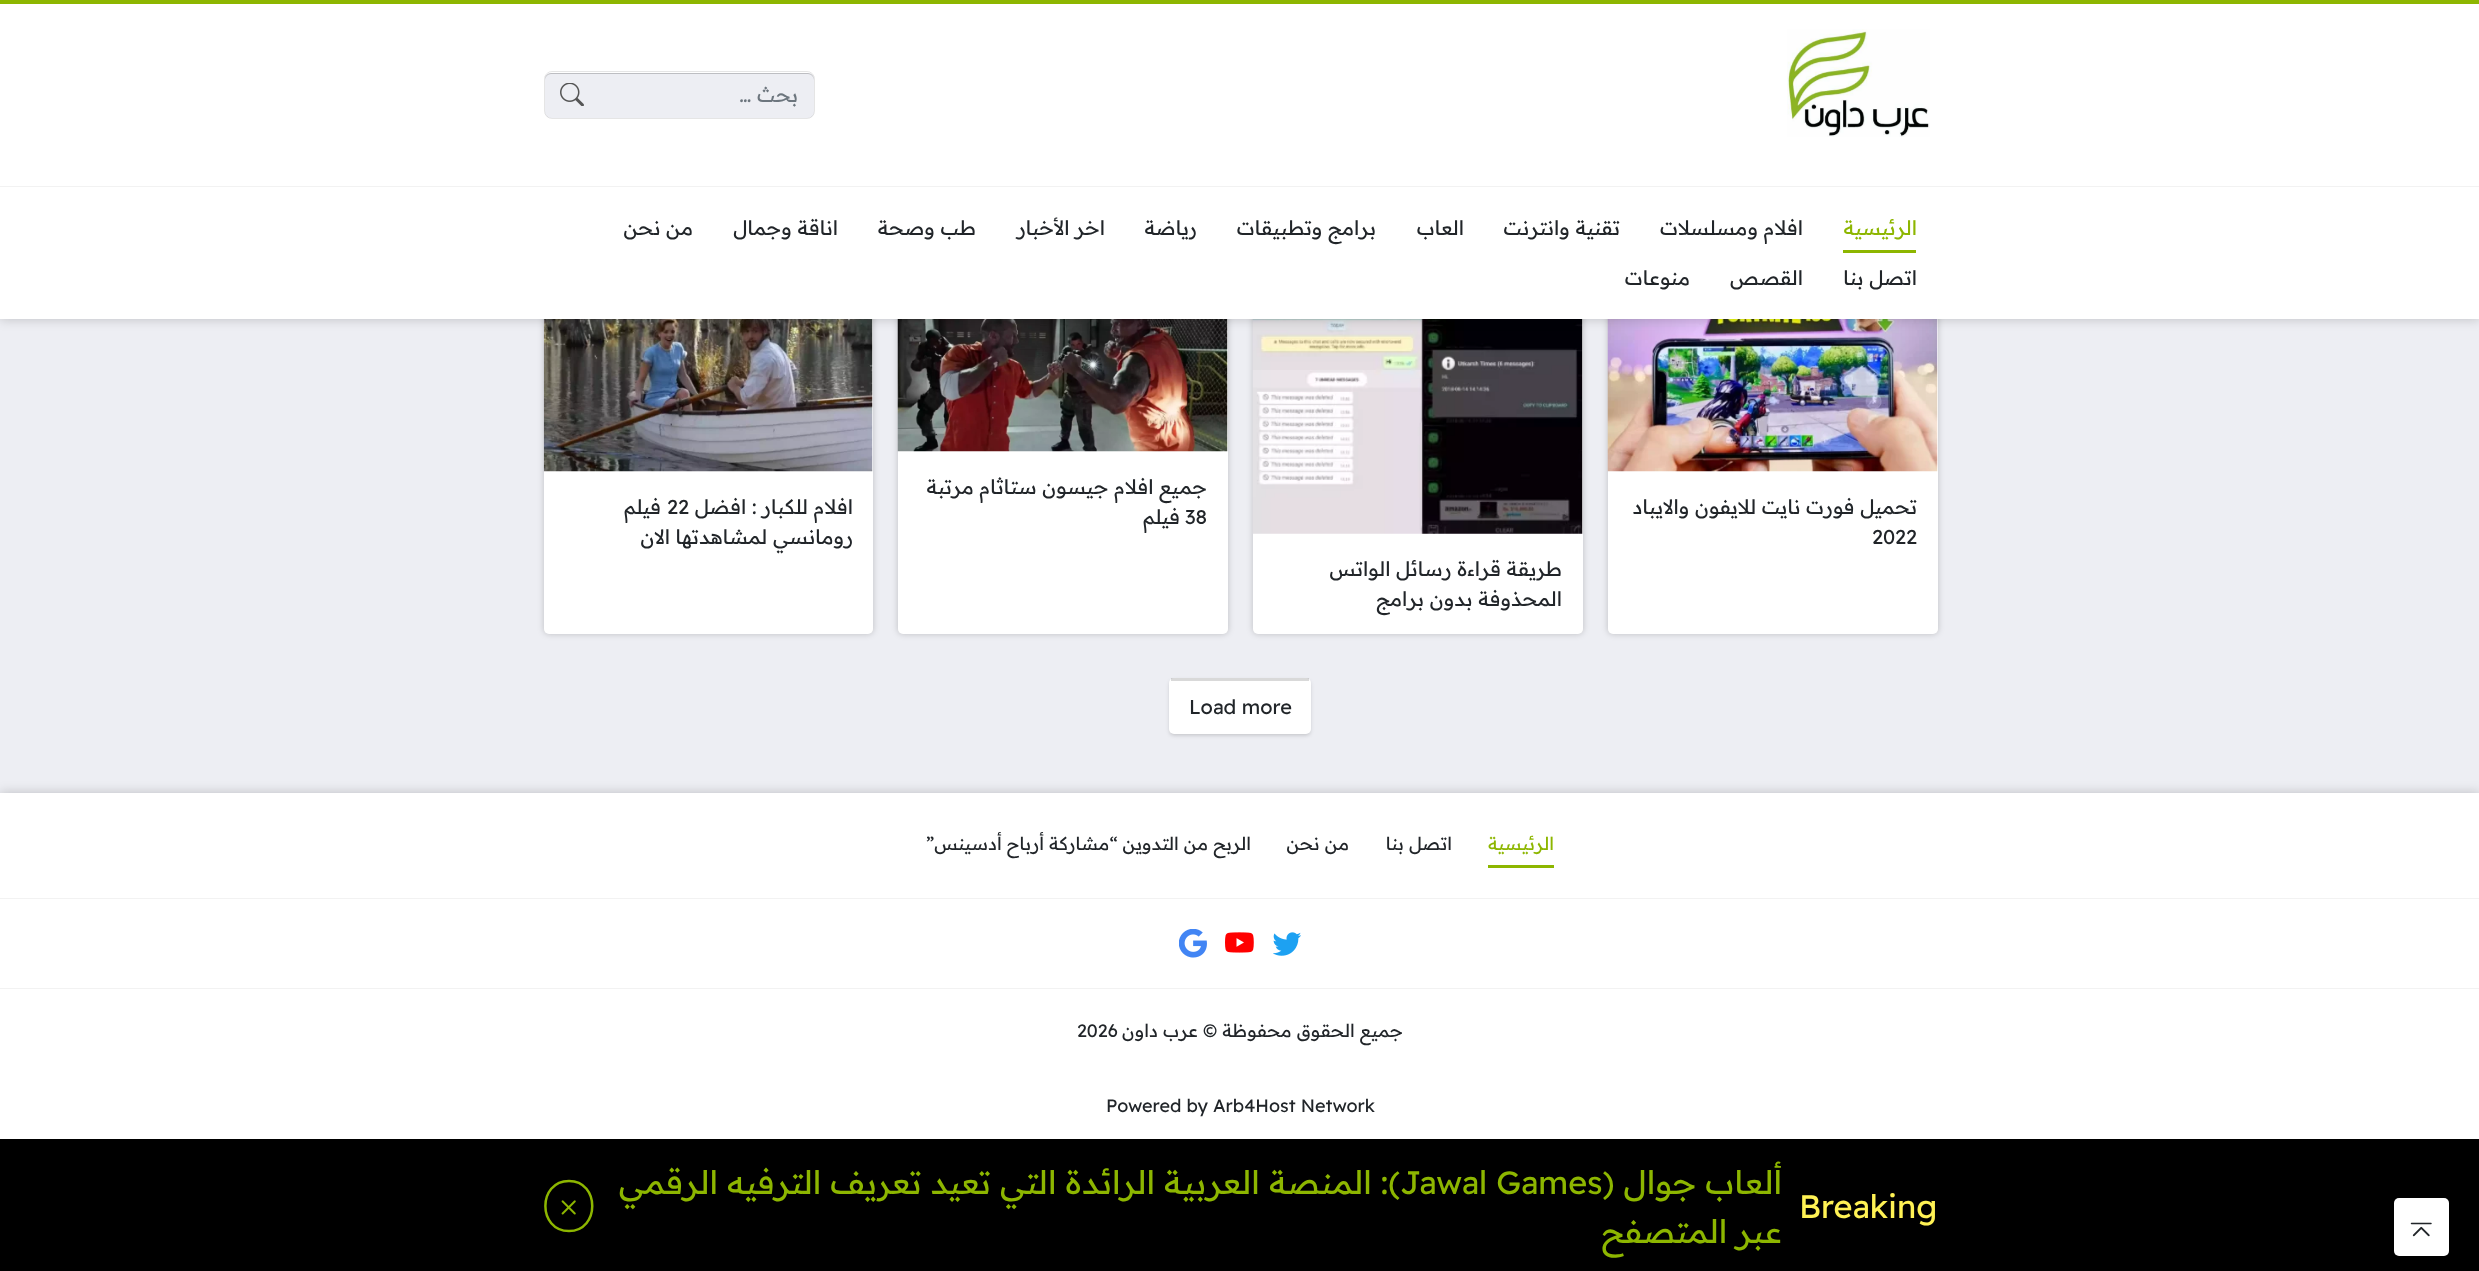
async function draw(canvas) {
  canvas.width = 2479;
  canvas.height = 1271;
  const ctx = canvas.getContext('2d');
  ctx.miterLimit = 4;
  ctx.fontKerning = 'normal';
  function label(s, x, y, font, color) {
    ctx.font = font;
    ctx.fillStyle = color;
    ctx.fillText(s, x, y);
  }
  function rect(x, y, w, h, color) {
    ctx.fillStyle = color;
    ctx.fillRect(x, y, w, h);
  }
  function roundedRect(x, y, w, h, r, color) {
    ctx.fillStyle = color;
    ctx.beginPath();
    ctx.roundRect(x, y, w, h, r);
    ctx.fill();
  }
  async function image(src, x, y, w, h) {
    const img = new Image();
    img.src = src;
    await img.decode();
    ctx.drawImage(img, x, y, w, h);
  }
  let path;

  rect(0, 0, 2479, 1271, '#edeef3');
  ctx.fillStyle = '#00000033';
  ctx.filter = 'blur(3px)';
  ctx.beginPath();
  ctx.roundRect(1608, 286, 330, 348, 5);
  ctx.fill();
  ctx.filter = 'none';
  roundedRect(1608, 286, 330, 348, 5, '#fff');
  await image('assets/img3.png', 1607, 319, 331, 153);
  ctx.fillStyle = '#00000033';
  ctx.filter = 'blur(3px)';
  ctx.beginPath();
  ctx.roundRect(898, 286, 330, 348, 5);
  ctx.fill();
  ctx.filter = 'none';
  roundedRect(898, 286, 330, 348, 5, '#fff');
  await image('assets/img4.png', 897, 319, 331, 133);
  ctx.fillStyle = '#00000033';
  ctx.filter = 'blur(3px)';
  ctx.beginPath();
  ctx.roundRect(544, 286, 329, 348, 5);
  ctx.fill();
  ctx.filter = 'none';
  roundedRect(544, 286, 329, 348, 5, '#fff');
  await image('assets/img5.png', 543, 319, 330, 153);
  ctx.fillStyle = '#00000033';
  ctx.filter = 'blur(3px)';
  ctx.beginPath();
  ctx.roundRect(1253, 286, 330, 348, 5);
  ctx.fill();
  ctx.filter = 'none';
  roundedRect(1253, 286, 330, 348, 5, '#fff');
  await image('assets/img6.png', 1252, 319, 331, 215);
  ctx.fillStyle = '#00000033';
  ctx.filter = 'blur(6px)';
  ctx.beginPath();
  ctx.rect(0, 0, 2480, 319);
  ctx.fill();
  ctx.filter = 'none';
  rect(0, 0, 2479, 4, '#8db600');
  rect(0, 4, 2479, 182, '#fff');
  await image('assets/img1.png', 1787, 29, 143, 108);
  roundedRect(545, 73, 269, 45, 6, '#edeef3');
  await image('assets/img2.png', 560, 83, 24, 23);
  ctx.fillStyle = '#00000033';
  path = new Path2D('M551 74H808C811 74 814 77 814 80V79C814 76 811 73 808 73H551C548 73 545 76 545 79V80C545 77 548 74 551 74Z');
  ctx.fill(path);
  ctx.beginPath();
  ctx.roundRect(544.5, 71.5, 270, 47, 7.5);
  ctx.strokeStyle = '#0000001a';
  ctx.stroke();
  ctx.direction = 'rtl';
  label('بحث …', 798, 102, '20px Readex Pro', '#6c757d');
  rect(0, 187, 2479, 132, '#fff');
  rect(0, 186, 2479, 1, '#f2f2f2');
  label('الرئيسية', 1917, 235, '20px Readex Pro', '#8db600');
  rect(1843, 250, 73, 3, '#8db600');
  label('افلام ومسلسلات', 1803, 235, '20px Readex Pro', '#212529');
  label('تقنية وانترنت', 1620, 235, '20px Readex Pro', '#212529');
  label('العاب', 1464, 235, '20px Readex Pro', '#212529');
  label('برامج وتطبيقات', 1376, 235, '20px Readex Pro', '#212529');
  label('رياضة', 1197, 235, '20px Readex Pro', '#212529');
  label('اخر الأخبار', 1105, 235, '20px Readex Pro', '#212529');
  label('طب وصحة', 976, 235, '20px Readex Pro', '#212529');
  label('اناقة وجمال', 838, 235, '20px Readex Pro', '#212529');
  label('من نحن', 693, 235, '20px Readex Pro', '#212529');
  label('اتصل بنا', 1917, 285, '20px Readex Pro', '#212529');
  label('القصص', 1803, 285, '20px Readex Pro', '#212529');
  label('منوعات', 1690, 285, '20px Readex Pro', '#212529');
  label('تحميل فورت نايت للايفون والايباد', 1917, 514, '20px Readex Pro', '#212529');
  ctx.direction = 'ltr';
  label('2022', 1872, 544, '20px Readex Pro', '#212529');
  ctx.direction = 'rtl';
  label('جميع افلام جيسون ستاثام مرتبة', 1207, 494, '20px Readex Pro', '#212529');
  ctx.direction = 'ltr';
  label('38', 1185, 524, '20px Readex Pro', '#212529');
  ctx.direction = 'rtl';
  label('فيلم', 1180, 524, '20px Readex Pro', '#212529');
  label('افلام للكبار : افضل', 853, 514, '20px Readex Pro', '#212529');
  ctx.direction = 'ltr';
  label('22', 667, 514, '20px Readex Pro', '#212529');
  ctx.direction = 'rtl';
  label('فيلم', 661, 514, '20px Readex Pro', '#212529');
  label('رومانسي لمشاهدتها الان', 853, 544, '20px Readex Pro', '#212529');
  label('طريقة قراءة رسائل الواتس', 1562, 576, '20px Readex Pro', '#212529');
  label('المحذوفة بدون برامج', 1562, 606, '20px Readex Pro', '#212529');
  ctx.fillStyle = '#00000033';
  ctx.filter = 'blur(2px)';
  ctx.beginPath();
  ctx.roundRect(1170, 681, 140, 54, 4);
  ctx.fill();
  ctx.filter = 'none';
  roundedRect(1169, 678, 142, 56, 5, '#fff');
  rect(1171, 678, 138, 3, '#00000026');
  ctx.direction = 'ltr';
  label('Load more', 1189, 714, '20px Readex Pro', '#212529');
  ctx.fillStyle = '#00000033';
  ctx.filter = 'blur(6px)';
  ctx.beginPath();
  ctx.rect(0, 793, 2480, 350);
  ctx.fill();
  ctx.filter = 'none';
  rect(0, 793, 2479, 105, '#fff');
  ctx.direction = 'rtl';
  label('الرئيسية', 1554, 850, '18px Readex Pro', '#8db600');
  rect(1488, 865, 66, 3, '#8db600');
  label('اتصل بنا', 1452, 850, '18px Readex Pro', '#212529');
  label('من نحن', 1349, 850, '18px Readex Pro', '#212529');
  label('الربح من التدوين “مشاركة أرباح أدسينس”', 1251, 850, '18px Readex Pro', '#212529');
  rect(0, 899, 2479, 89, '#fff');
  rect(0, 898, 2479, 1, '#f2f2f2');
  await image('assets/img7.png', 1273, 932, 28, 24);
  await image('assets/img8.png', 1225, 932, 29, 21);
  await image('assets/img9.png', 1179, 929, 28, 29);
  rect(0, 989, 2479, 150, '#fff');
  rect(0, 988, 2479, 1, '#f2f2f2');
  label('جميع الحقوق محفوظة © عرب داون', 1403, 1037, '18px Readex Pro', '#212529');
  ctx.direction = 'ltr';
  label('2026', 1077, 1037, '18px Readex Pro', '#212529');
  label('Powered by Arb4Host Network', 1106, 1112, '18px Readex Pro', '#212529');
  rect(0, 1139, 2479, 132, '#000');
  roundedRect(2394, 1198, 55, 58, 5, '#fff');
  await image('assets/img10.png', 2410, 1222, 22, 15);
  label('Breaking', 1799, 1218, '32.4px Readex Pro', '#fff254');
  ctx.direction = 'rtl';
  label('ألعاب جوال (', 1782, 1194, '32.4px Readex Pro', '#8db600');
  ctx.direction = 'ltr';
  label('Jawal Games', 1400, 1194, '32.4px Readex Pro', '#8db600');
  ctx.direction = 'rtl';
  label('): المنصة العربية الرائدة التي تعيد تعريف الترفيه الرقمي', 1400, 1194, '32.4px Readex Pro', '#8db600');
  label('عبر المتصفح', 1782, 1243, '32.4px Readex Pro', '#8db600');
  path = new Path2D('M569 1181C600 1181 600 1231 569 1231C537.5 1231 537.5 1181 569 1181Z');
  ctx.strokeStyle = '#8db600';
  ctx.lineWidth = 2.5;
  ctx.stroke(path);
  await image('assets/img11.png', 561, 1200, 15, 15);
}

draw(document.querySelector('canvas'));
